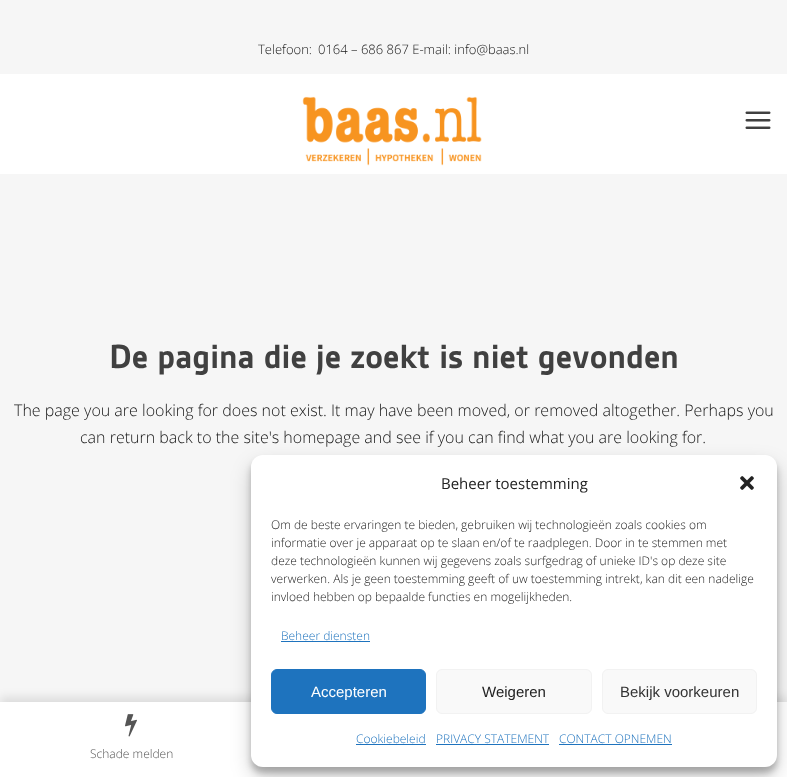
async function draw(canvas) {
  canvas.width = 787;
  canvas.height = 777;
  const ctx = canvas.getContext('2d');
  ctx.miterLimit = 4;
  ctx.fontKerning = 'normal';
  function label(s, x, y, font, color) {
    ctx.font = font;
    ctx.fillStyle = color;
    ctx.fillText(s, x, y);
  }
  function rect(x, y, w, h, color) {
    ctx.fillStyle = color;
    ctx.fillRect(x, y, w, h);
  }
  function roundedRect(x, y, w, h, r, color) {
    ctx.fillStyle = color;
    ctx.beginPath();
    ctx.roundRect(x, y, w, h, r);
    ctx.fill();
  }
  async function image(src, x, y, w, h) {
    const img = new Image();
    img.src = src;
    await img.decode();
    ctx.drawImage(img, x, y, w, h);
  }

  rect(0, 0, 787, 777, '#f6f6f6');
  label('Telefoon:', 258, 54, '300 13px Open Sans', '#171717');
  label('0164 – 686 867 E-mail: info@baas.nl', 318, 54, '300 13px Open Sans', '#171717');
  rect(0, 74, 787, 100, '#fff');
  await image('assets/img1.png', 302, 96, 180, 70);
  await image('assets/img2.png', 745, 111, 26, 18);
  label('De pagina die je zoekt is niet gevonden', 109, 368, 'bold 32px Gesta', '#404040');
  label('The page you are looking for does not exist. It may have been moved, or removed altogether. Perhaps you', 14, 416, '300 16px Open Sans', '#171717');
  label('can return back to the site\'s homepage and see if you can find what you are looking for.', 80, 443, '300 16px Open Sans', '#171717');
  ctx.fillStyle = '#0000001a';
  ctx.filter = 'blur(5px)';
  ctx.beginPath();
  ctx.rect(0, 697, 787, 75);
  ctx.fill();
  ctx.filter = 'none';
  rect(0, 702, 787, 75, '#fff');
  ctx.fillStyle = '#0000003b';
  ctx.filter = 'blur(3px)';
  ctx.beginPath();
  ctx.roundRect(251, 461, 526, 312, 12);
  ctx.fill();
  ctx.filter = 'none';
  ctx.fillStyle = '#00000030';
  ctx.filter = 'blur(10px)';
  ctx.beginPath();
  ctx.roundRect(251, 465, 526, 312, 12);
  ctx.fill();
  ctx.filter = 'none';
  roundedRect(251, 455, 526, 312, 12, '#fff');
  label('Beheer toestemming', 441, 489, '15px Open Sans', '#222');
  await image('assets/img3.png', 740, 476, 14, 14);
  label('Om de beste ervaringen te bieden, gebruiken wij technologieën zoals cookies om', 271, 529, '300 12px Open Sans', '#222');
  label('informatie over je apparaat op te slaan en/of te raadplegen. Door in te stemmen met', 271, 547, '300 12px Open Sans', '#222');
  label('deze technologieën kunnen wij gegevens zoals surfgedrag of unieke ID\'s op deze site', 271, 565, '300 12px Open Sans', '#222');
  label('verwerken. Als je geen toestemming geeft of uw toestemming intrekt, kan dit een nadelige', 271, 583, '300 12px Open Sans', '#222');
  label('invloed hebben op bepaalde functies en mogelijkheden.', 271, 601, '300 12px Open Sans', '#222');
  label('Beheer diensten', 281, 640, '300 12px Open Sans', '#1e73be');
  rect(281, 641, 89, 1, '#1e73be');
  ctx.beginPath();
  ctx.roundRect(271.5, 669.5, 154, 44, 5.5);
  ctx.fill();
  ctx.strokeStyle = '#1e73be';
  ctx.stroke();
  label('Accepteren', 311, 697, '15px Liberation Sans', '#fff');
  ctx.fillStyle = '#f9f9f9';
  ctx.beginPath();
  ctx.roundRect(436.5, 669.5, 155, 44, 5.5);
  ctx.fill();
  ctx.strokeStyle = '#f2f2f2';
  ctx.stroke();
  label('Weigeren', 482, 697, '15px Liberation Sans', '#222');
  ctx.fillStyle = '#f9f9f9';
  ctx.beginPath();
  ctx.roundRect(602.5, 669.5, 154, 44, 5.5);
  ctx.fill();
  ctx.stroke();
  label('Bekijk voorkeuren', 620, 697, '15px Liberation Sans', '#333');
  label('Cookiebeleid', 356, 743, '300 12px Open Sans', '#1e73be');
  rect(356, 744, 70, 1, '#1e73be');
  label('PRIVACY STATEMENT', 436, 743, '300 12px Open Sans', '#1e73be');
  rect(436, 744, 113, 1, '#1e73be');
  label('CONTACT OPNEMEN', 559, 743, '300 12px Open Sans', '#1e73be');
  rect(559, 744, 113, 1, '#1e73be');
  await image('assets/img4.png', 125, 714, 12, 23);
  label('Schade melden', 90, 758, '300 12px Open Sans', '#555');
}

draw(document.querySelector('canvas'));
